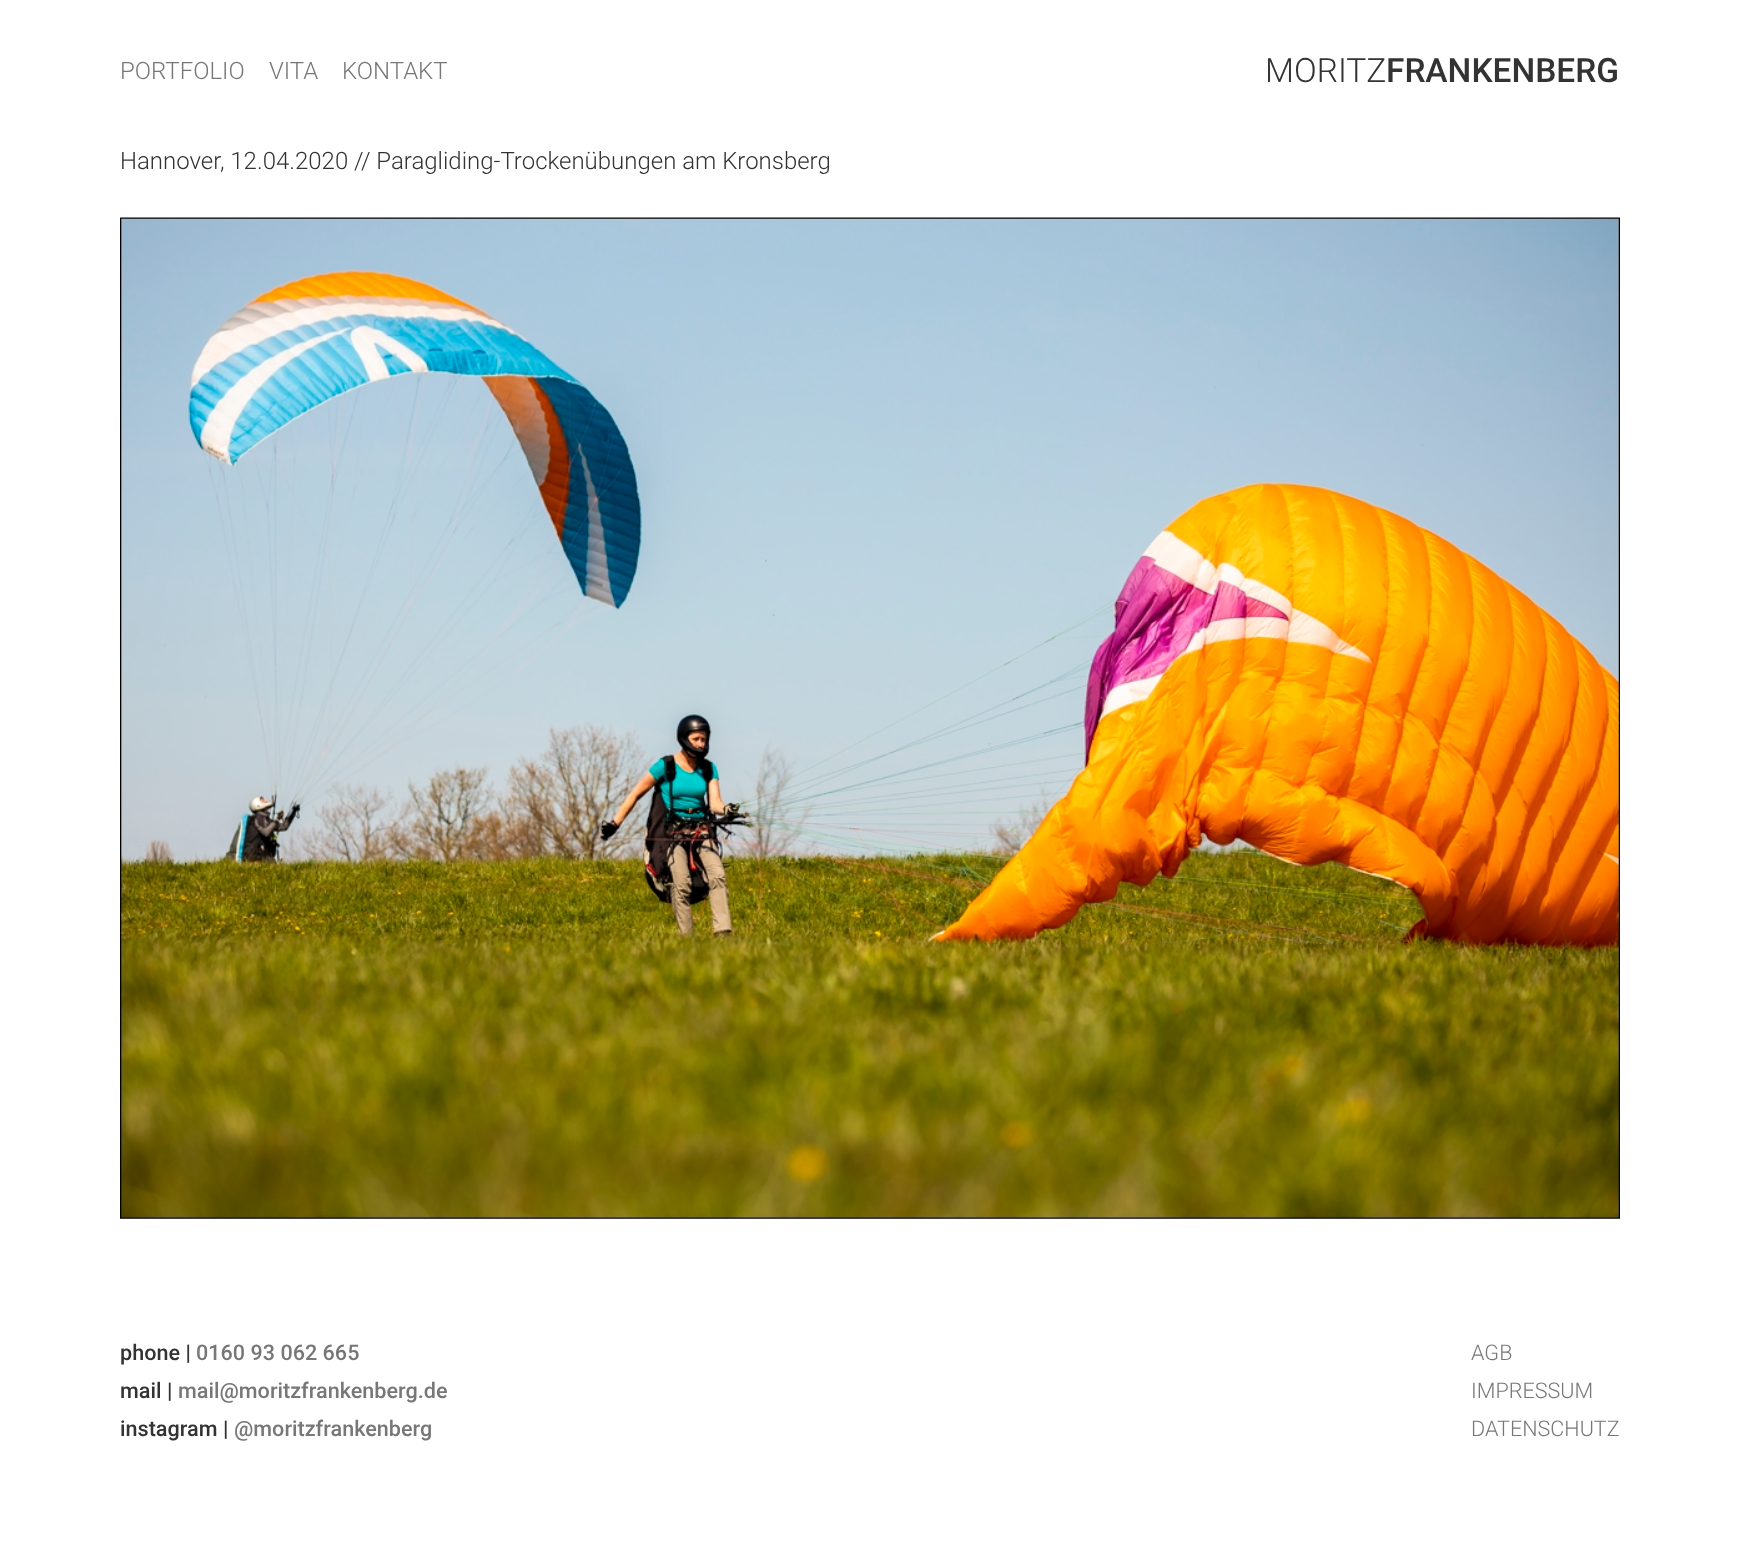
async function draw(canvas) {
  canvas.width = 1739;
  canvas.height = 1547;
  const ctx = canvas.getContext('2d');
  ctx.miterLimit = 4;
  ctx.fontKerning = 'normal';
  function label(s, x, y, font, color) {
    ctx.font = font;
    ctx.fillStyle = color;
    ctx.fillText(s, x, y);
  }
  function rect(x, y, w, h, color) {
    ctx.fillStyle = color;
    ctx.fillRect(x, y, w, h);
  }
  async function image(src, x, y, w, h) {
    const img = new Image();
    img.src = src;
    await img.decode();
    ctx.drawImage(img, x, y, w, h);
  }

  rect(0, 0, 1739, 1547, '#fff');
  label('PORTFOLIO', 120, 79, '300 24px Roboto', '#777');
  label('VITA', 269, 79, '300 24px Roboto', '#777');
  label('KONTAKT', 342, 79, '300 24px Roboto', '#777');
  label('MORITZ', 1265, 82, '300 33.5px Roboto', '#333');
  label('FRANKENBERG', 1386, 82, '500 33.5px Roboto', '#333');
  label('Hannover, 12.04.2020 // Paragliding-Trockenübungen am Kronsberg', 120, 169, '300 24px Roboto', '#333');
  await image('assets/img1.png', 120, 217, 1500, 1002);
  label('phone |', 120, 1360, '500 21.6px Roboto', '#333');
  label('0160 93 062 665', 196, 1360, '500 21.6px Roboto', '#777');
  label('mail |', 120, 1398, '500 21.6px Roboto', '#333');
  label('mail@moritzfrankenberg.de', 178, 1398, '500 21.6px Roboto', '#777');
  label('instagram |', 120, 1436, '500 21.6px Roboto', '#333');
  label('@moritzfrankenberg', 234, 1436, '500 21.6px Roboto', '#777');
  label('AGB', 1471, 1360, '300 21.6px Roboto', '#777');
  label('IMPRESSUM', 1471, 1398, '300 21.6px Roboto', '#777');
  label('DATENSCHUTZ', 1471, 1436, '300 21.6px Roboto', '#777');
}

draw(document.querySelector('canvas'));
